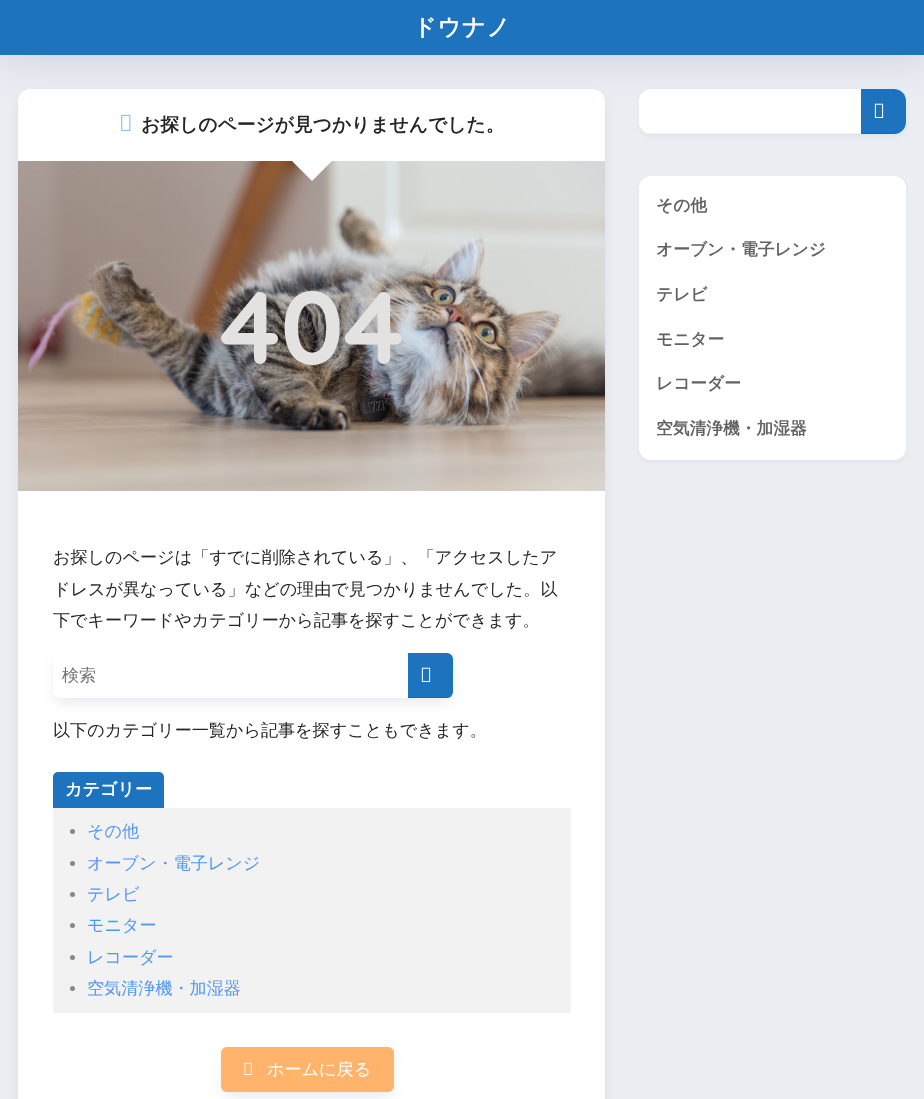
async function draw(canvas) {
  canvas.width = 924;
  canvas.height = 1099;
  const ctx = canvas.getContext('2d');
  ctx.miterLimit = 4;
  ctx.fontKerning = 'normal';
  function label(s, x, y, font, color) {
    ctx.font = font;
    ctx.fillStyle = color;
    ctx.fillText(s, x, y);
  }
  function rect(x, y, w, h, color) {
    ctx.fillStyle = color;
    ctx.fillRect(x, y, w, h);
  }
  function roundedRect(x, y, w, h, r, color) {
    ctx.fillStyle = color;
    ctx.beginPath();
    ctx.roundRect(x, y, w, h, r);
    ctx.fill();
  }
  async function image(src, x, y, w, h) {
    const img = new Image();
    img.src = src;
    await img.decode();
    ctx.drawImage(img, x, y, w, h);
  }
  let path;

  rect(0, 0, 924, 1099, '#eaedf2');
  ctx.fillStyle = '#001e641a';
  ctx.filter = 'blur(0.5px)';
  ctx.beginPath();
  ctx.roundRect(18, 89, 587, 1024, 12);
  ctx.fill();
  ctx.filter = 'none';
  ctx.fillStyle = '#000c421a';
  ctx.filter = 'blur(6.5px)';
  ctx.beginPath();
  ctx.roundRect(21, 98, 581, 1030, 9);
  ctx.fill();
  ctx.filter = 'none';
  ctx.fillStyle = '#fff';
  ctx.beginPath();
  ctx.roundRect(18, 89, 587, 72, [12, 12, 0, 0]);
  ctx.fill();
  await image('assets/img1.png', 121, 114, 10, 17);
  ctx.fillStyle = '#4385bb12';
  ctx.filter = 'blur(2px)';
  ctx.beginPath();
  ctx.roundRect(639, 91, 267, 45, 12);
  ctx.fill();
  ctx.filter = 'none';
  roundedRect(639, 89, 267, 45, 12, '#fff');
  ctx.save();
  ctx.beginPath();
  ctx.roundRect(639, 89, 267, 45, 12);
  ctx.clip();
  rect(642, 133, 261, 1, '#efefef');
  ctx.restore();
  ctx.fillStyle = '#1e73be';
  ctx.beginPath();
  ctx.roundRect(861, 89, 45, 45, [0, 12, 12, 0]);
  ctx.fill();
  await image('assets/img3.png', 874, 103, 10, 15);
  ctx.fillStyle = '#000c4226';
  ctx.filter = 'blur(22.5px)';
  ctx.beginPath();
  ctx.rect(0, 0, 924, 55);
  ctx.fill();
  ctx.filter = 'none';
  rect(0, 0, 924, 55, '#1e73be');
  ctx.letterSpacing = '1px';
  label('ドウナノ', 413, 35, 'bold 23px WenQuanYi Zen Hei', '#fff');
  ctx.letterSpacing = '0px';
  label('お探しのページが見つかりませんでした。', 141, 131, 'bold 18.8px WenQuanYi Zen Hei', '#252525');
  await image('assets/img2.png', 18, 161, 587, 330);
  ctx.fillStyle = '#fff';
  path = new Path2D('M292 161H332L312 181Z');
  ctx.fill(path);
  label('404', 220, 364, 'bold 103px Quicksand', '#e3e2e1');
  rect(18, 491, 587, 608, '#fff');
  label('お探しのページは「すでに削除されている」、「アクセスしたア', 53, 563, '500 17.1px WenQuanYi Zen Hei', '#252525');
  label('ドレスが異なっている」などの理由で見つかりませんでした。以', 53, 595, '500 17.1px WenQuanYi Zen Hei', '#252525');
  label('下でキーワードやカテゴリーから記事を探すことができます。', 53, 626, '500 17.1px WenQuanYi Zen Hei', '#252525');
  ctx.fillStyle = '#001e641a';
  ctx.filter = 'blur(0.5px)';
  ctx.beginPath();
  ctx.roundRect(53, 653, 400, 45, 6);
  ctx.fill();
  ctx.filter = 'none';
  ctx.fillStyle = '#000c421a';
  ctx.filter = 'blur(6.5px)';
  ctx.beginPath();
  ctx.roundRect(56, 662, 394, 39, 3);
  ctx.fill();
  ctx.filter = 'none';
  roundedRect(53, 653, 400, 45, 6, '#fff');
  label('検索', 62, 681, '500 17.1px WenQuanYi Zen Hei', '#757575');
  ctx.fillStyle = '#1e73be';
  ctx.beginPath();
  ctx.roundRect(408, 653, 45, 45, [0, 6, 6, 0]);
  ctx.fill();
  rect(408, 697, 42, 1, '#0000001a');
  await image('assets/img3.png', 421, 667, 10, 15);
  label('以下のカテゴリー一覧から記事を探すこともできます。', 53, 736, '500 17.1px WenQuanYi Zen Hei', '#252525');
  ctx.fillStyle = '#1e73be';
  ctx.beginPath();
  ctx.roundRect(53, 772, 111, 36, [5, 5, 0, 0]);
  ctx.fill();
  label('カテゴリー', 65, 795, 'bold 17.1px WenQuanYi Zen Hei', '#fff');
  rect(53, 808, 518, 205, '#f2f2f2');
  ctx.fillStyle = '#878787';
  ctx.beginPath();
  ctx.arc(72.5, 831.5, 2.5, 0, 2 * Math.PI);
  ctx.fill();
  label('その他', 87, 837, '500 17.1px WenQuanYi Zen Hei', '#4f96f6');
  ctx.fillStyle = '#878787';
  ctx.beginPath();
  ctx.arc(72.5, 863.5, 2.5, 0, 2 * Math.PI);
  ctx.fill();
  label('オーブン・電子レンジ', 87, 869, '500 17.1px WenQuanYi Zen Hei', '#4f96f6');
  ctx.fillStyle = '#878787';
  ctx.beginPath();
  ctx.arc(72.5, 894.5, 2.5, 0, 2 * Math.PI);
  ctx.fill();
  label('テレビ', 87, 900, '500 17.1px WenQuanYi Zen Hei', '#4f96f6');
  ctx.fillStyle = '#878787';
  ctx.beginPath();
  ctx.arc(72.5, 925.5, 2.5, 0, 2 * Math.PI);
  ctx.fill();
  label('モニター', 87, 931, '500 17.1px WenQuanYi Zen Hei', '#4f96f6');
  ctx.fillStyle = '#878787';
  ctx.beginPath();
  ctx.arc(72.5, 957.5, 2.5, 0, 2 * Math.PI);
  ctx.fill();
  label('レコーダー', 87, 963, '500 17.1px WenQuanYi Zen Hei', '#4f96f6');
  ctx.fillStyle = '#878787';
  ctx.beginPath();
  ctx.arc(72.5, 988.5, 2.5, 0, 2 * Math.PI);
  ctx.fill();
  label('空気清浄機・加湿器', 87, 994, '500 17.1px WenQuanYi Zen Hei', '#4f96f6');
  ctx.fillStyle = '#001e641a';
  ctx.filter = 'blur(0.5px)';
  ctx.beginPath();
  ctx.roundRect(221, 1047, 173, 45, 6);
  ctx.fill();
  ctx.filter = 'none';
  ctx.fillStyle = '#000c421a';
  ctx.filter = 'blur(6.5px)';
  ctx.beginPath();
  ctx.roundRect(224, 1056, 167, 39, 3);
  ctx.fill();
  ctx.filter = 'none';
  roundedRect(221, 1047, 173, 45, 6, '#ffb36b');
  await image('assets/img4.png', 244, 1062, 8, 13);
  label('ホームに戻る', 267, 1075, '500 17.1px WenQuanYi Zen Hei', '#fff');
  ctx.save();
  ctx.beginPath();
  ctx.roundRect(639, 89, 267, 45, 12);
  ctx.clip();
  rect(861, 133, 42, 1, '#0000001a');
  ctx.restore();
  ctx.fillStyle = '#4385bb12';
  ctx.filter = 'blur(2px)';
  ctx.beginPath();
  ctx.roundRect(639, 178, 267, 284, 12);
  ctx.fill();
  ctx.filter = 'none';
  roundedRect(639, 176, 267, 284, 12, '#fff');
  label('その他', 656, 211, 'bold 16.75px WenQuanYi Zen Hei', '#626262');
  label('オーブン・電子レンジ', 656, 255, 'bold 16.75px WenQuanYi Zen Hei', '#626262');
  label('テレビ', 656, 300, 'bold 16.75px WenQuanYi Zen Hei', '#626262');
  label('モニター', 656, 345, 'bold 16.75px WenQuanYi Zen Hei', '#626262');
  label('レコーダー', 656, 389, 'bold 16.75px WenQuanYi Zen Hei', '#626262');
  label('空気清浄機・加湿器', 656, 434, 'bold 16.75px WenQuanYi Zen Hei', '#626262');
}

draw(document.querySelector('canvas'));
